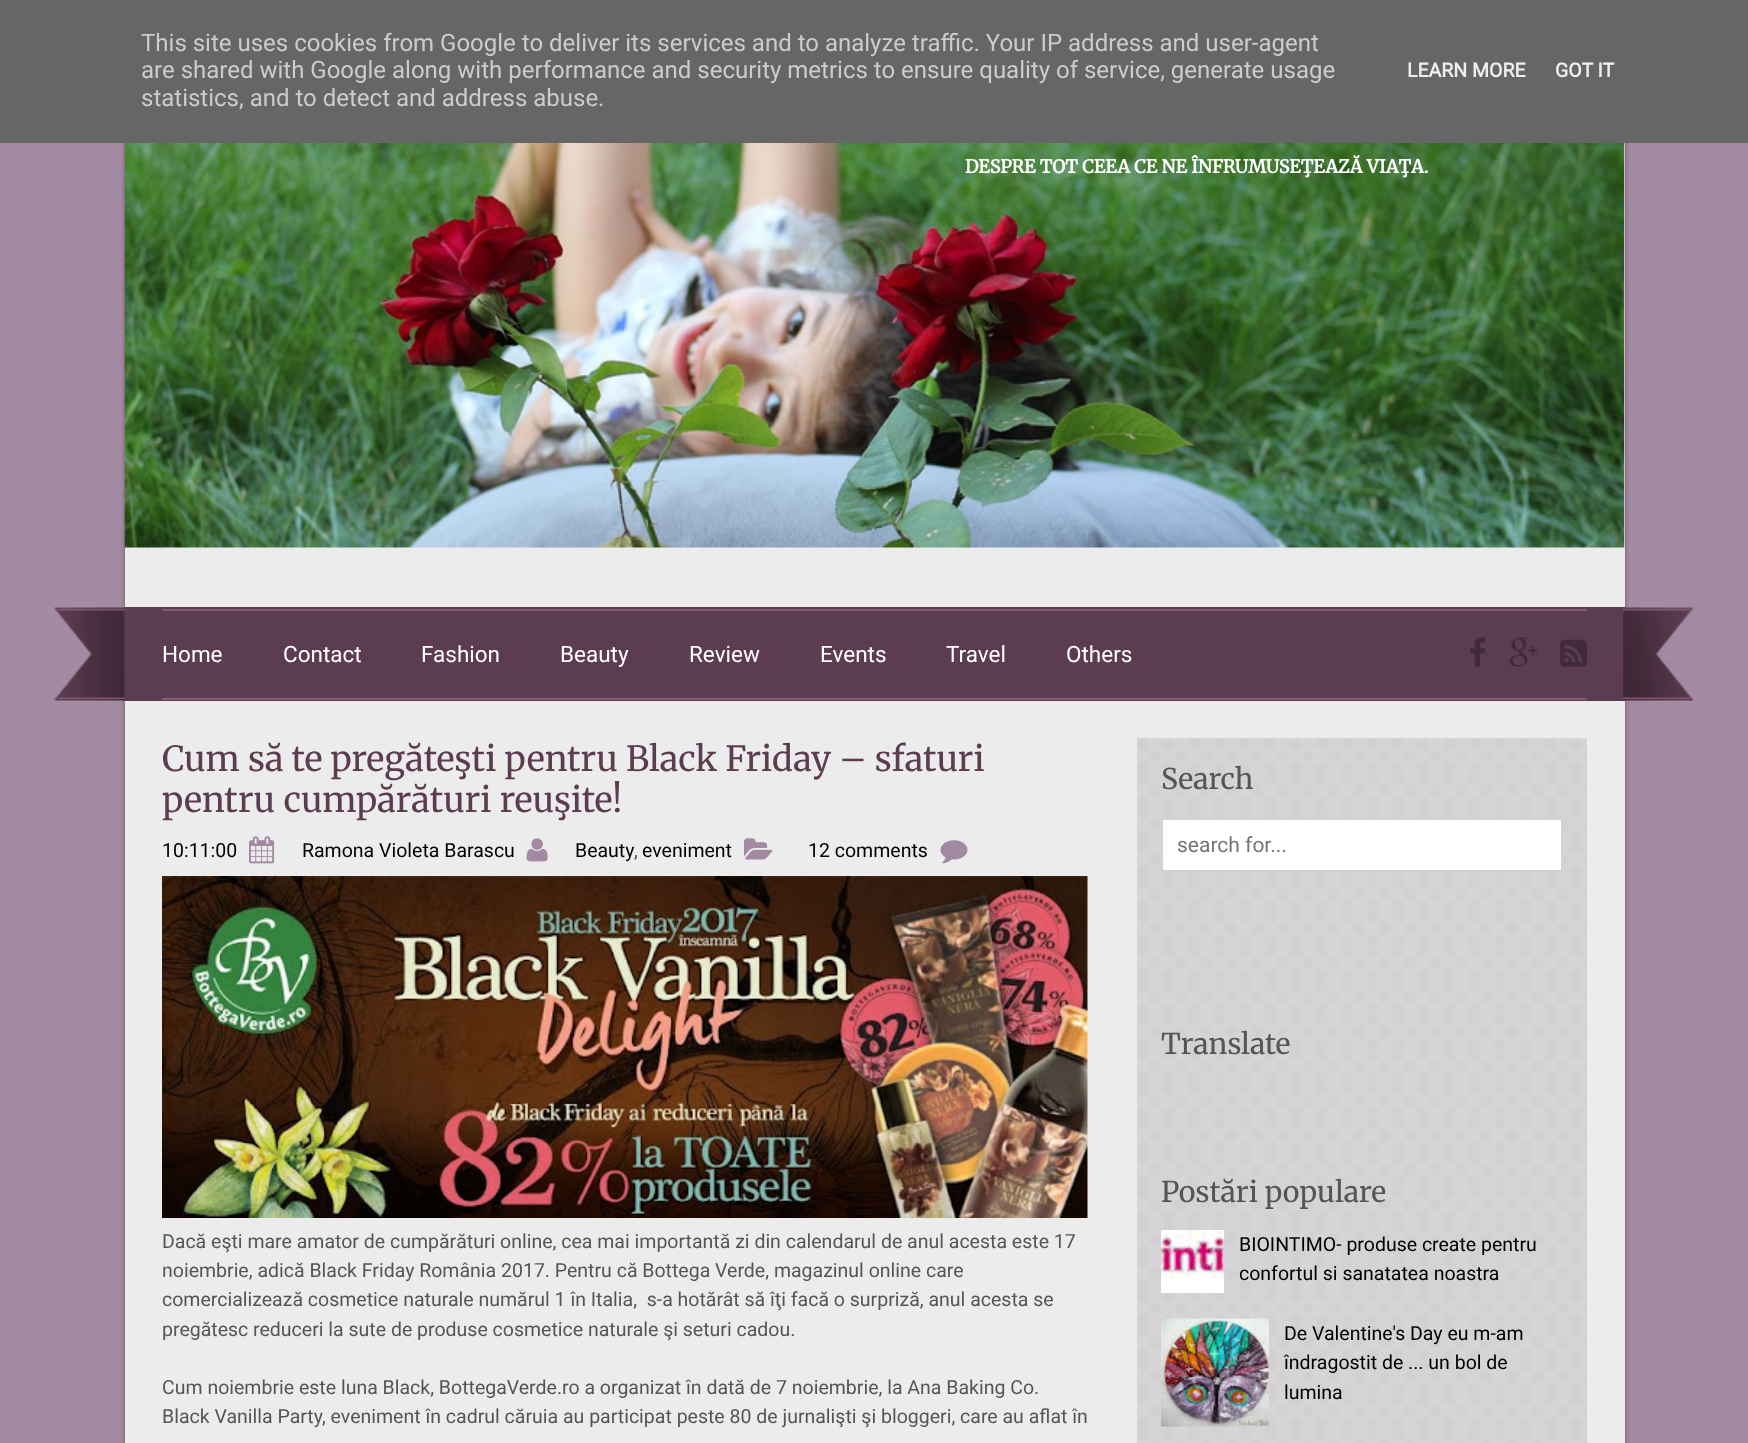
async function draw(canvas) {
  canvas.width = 1748;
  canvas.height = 1443;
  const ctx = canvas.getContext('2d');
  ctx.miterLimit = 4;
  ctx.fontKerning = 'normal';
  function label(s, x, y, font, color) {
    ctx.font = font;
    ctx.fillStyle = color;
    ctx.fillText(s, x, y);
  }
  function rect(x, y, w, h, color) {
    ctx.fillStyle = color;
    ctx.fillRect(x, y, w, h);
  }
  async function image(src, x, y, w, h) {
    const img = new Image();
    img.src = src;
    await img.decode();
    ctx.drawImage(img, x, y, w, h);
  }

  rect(0, 0, 1748, 1443, '#a38ba3');
  ctx.fillStyle = '#745168';
  ctx.filter = 'blur(2px)';
  ctx.beginPath();
  ctx.rect(125, 38, 1500, 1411);
  ctx.fill();
  ctx.filter = 'none';
  rect(0, 0, 1748, 143, '#666');
  label('This site uses cookies from Google to deliver its services and to analyze traffic. Your IP address and user-agent', 141, 51, '24px Roboto', '#ccc');
  label('are shared with Google along with performance and security metrics to ensure quality of service, generate usage', 141, 78, '24px Roboto', '#ccc');
  label('statistics, and to detect and address abuse.', 141, 106, '24px Roboto', '#ccc');
  label('LEARN MORE', 1407, 77, 'bold 19.5px Roboto', '#eee');
  label('GOT IT', 1555, 77, 'bold 19.5px Roboto', '#eee');
  rect(125, 143, 1500, 464, '#ececec');
  await image('assets/img1.png', 124, 143, 1501, 405);
  label('DESPRE TOT CEEA CE NE ÎNFRUMUSEŢEAZĂ VIAŢA.', 965, 173, 'bold 18px Merriweather', '#fff');
  rect(124, 607, 1501, 94, '#5c3c50');
  await image('assets/img2.png', 54, 607, 71, 94);
  rect(162, 609, 1425, 2, '#845974');
  label('Home', 162, 662, '22.5px Roboto', '#fff');
  label('Contact', 283, 662, '22.5px Roboto', '#fff');
  label('Fashion', 421, 662, '22.5px Roboto', '#fff');
  label('Beauty', 560, 662, '22.5px Roboto', '#fff');
  label('Review', 689, 662, '22.5px Roboto', '#fff');
  label('Events', 820, 662, '22.5px Roboto', '#fff');
  label('Travel', 946, 662, '22.5px Roboto', '#fff');
  label('Others', 1066, 662, '22.5px Roboto', '#fff');
  await image('assets/img3.png', 1470, 637, 16, 30);
  await image('assets/img4.png', 1509, 637, 29, 30);
  await image('assets/img5.png', 1560, 639, 27, 28);
  rect(162, 698, 1425, 2, '#845974');
  await image('assets/img6.png', 1623, 607, 71, 94);
  rect(125, 701, 1500, 742, '#ececec');
  label('Cum să te pregăteşti pentru Black Friday – sfaturi', 162, 771, '300 34.5px Merriweather', '#5c3c50');
  label('pentru cumpărături reuşite!', 162, 812, '300 34.5px Merriweather', '#5c3c50');
  label('10:11:00', 162, 857, '19.5px Roboto', '#000');
  await image('assets/img7.png', 249, 836, 26, 28);
  label('Ramona Violeta Barascu', 302, 857, '19.5px Roboto', '#000');
  await image('assets/img8.png', 526, 838, 22, 24);
  label('Beauty', 575, 857, '19.5px Roboto', '#000');
  label('eveniment', 642, 857, '19.5px Roboto', '#000');
  await image('assets/img9.png', 744, 838, 29, 22);
  label(',', 634, 857, '19.5px Roboto', '#555');
  label('12 comments', 808, 857, '19.5px Roboto', '#000');
  await image('assets/img10.png', 940, 840, 28, 24);
  await image('assets/img11.png', 162, 876, 926, 342);
  label('Dacă eşti mare amator de cumpărături online, cea mai importantă zi din calendarul de anul acesta este 17', 162, 1248, '19.5px Roboto', '#555');
  label('noiembrie, adică Black Friday România 2017. Pentru că Bottega Verde, magazinul online care', 162, 1277, '19.5px Roboto', '#555');
  label('comercializează cosmetice naturale numărul 1 în Italia,  s-a hotărât să îţi facă o surpriză, anul acesta se', 162, 1306, '19.5px Roboto', '#555');
  label('pregătesc reduceri la sute de produse cosmetice naturale şi seturi cadou.', 162, 1336, '19.5px Roboto', '#555');
  label('Cum noiembrie este luna Black, BottegaVerde.ro a organizat în dată de 7 noiembrie, la Ana Baking Co.', 162, 1394, '19.5px Roboto', '#555');
  label('Black Vanilla Party, eveniment în cadrul căruia au participat peste 80 de jurnalişti şi bloggeri, care au aflat în', 162, 1423, '19.5px Roboto', '#555');
  await image('assets/img12.png', 1137, 738, 450, 705);
  label('Search', 1161, 789, '300 28.5px Merriweather', '#555');
  ctx.fillStyle = '#fff';
  ctx.beginPath();
  ctx.roundRect(1162, 819, 400, 52, 2);
  ctx.fill();
  ctx.strokeStyle = '#d5d2d5';
  ctx.lineWidth = 2;
  ctx.stroke();
  label('search for...', 1177, 852, '21px Roboto', '#757575');
  label('Translate', 1161, 1054, '300 28.5px Merriweather', '#555');
  label('Postări populare', 1161, 1202, '300 28.5px Merriweather', '#555');
  await image('assets/img13.png', 1161, 1230, 63, 63);
  label('BIOINTIMO- produse create pentru', 1239, 1251, '19.5px Roboto', '#000');
  label('confortul si sanatatea noastra', 1239, 1280, '19.5px Roboto', '#000');
  await image('assets/img14.png', 1161, 1318, 108, 109);
  label('De Valentine\'s Day eu m-am', 1284, 1340, '19.5px Roboto', '#000');
  label('îndragostit de ... un bol de', 1284, 1369, '19.5px Roboto', '#000');
  label('lumina', 1284, 1399, '19.5px Roboto', '#000');
}

draw(document.querySelector('canvas'));
